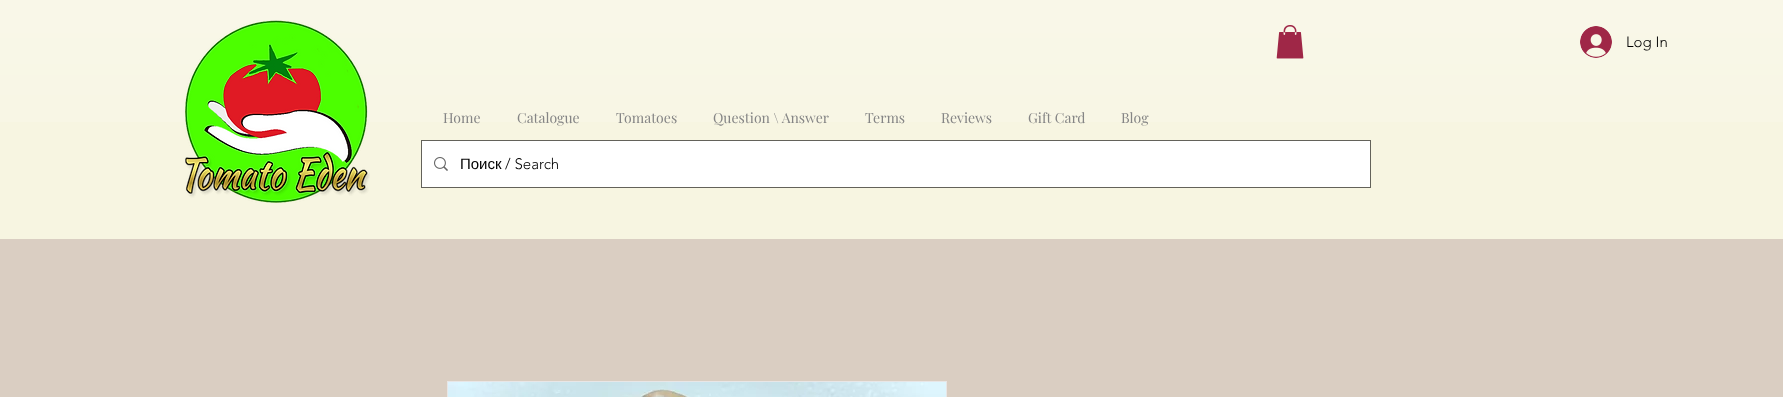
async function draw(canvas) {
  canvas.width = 1783;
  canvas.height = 397;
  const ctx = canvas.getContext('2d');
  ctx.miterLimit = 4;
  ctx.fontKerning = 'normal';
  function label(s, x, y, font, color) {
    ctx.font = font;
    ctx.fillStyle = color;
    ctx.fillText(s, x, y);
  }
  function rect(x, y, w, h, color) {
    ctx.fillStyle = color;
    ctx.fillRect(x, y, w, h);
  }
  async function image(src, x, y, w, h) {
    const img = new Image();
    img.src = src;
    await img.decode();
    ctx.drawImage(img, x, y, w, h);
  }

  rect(0, 0, 1783, 397, '#dacec2');
  rect(0, 0, 1783, 239, '#f7f5e1');
  await image('assets/img2.png', 0, 0, 1783, 122);
  await image('assets/img1.png', 1580, 26, 32, 32);
  label('Log In', 1626, 47, '300 15px "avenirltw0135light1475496"', '#000');
  await image('assets/img3.png', 185, 20, 185, 183);
  await image('assets/img4.png', 1276, 25, 28, 34);
  label('Home', 443, 123, '14px Playfair Display', '#858585');
  label('Catalogue', 517, 123, '14px Playfair Display', '#858585');
  label('Tomatoes', 616, 123, '14px Playfair Display', '#858585');
  label('Question \\ Answer', 713, 123, '14px Playfair Display', '#858585');
  label('Terms', 865, 123, '14px Playfair Display', '#858585');
  label('Reviews', 941, 123, '14px Playfair Display', '#858585');
  label('Gift Card', 1028, 123, '14px Playfair Display', '#858585');
  label('Blog', 1121, 123, '14px Playfair Display', '#858585');
  ctx.strokeStyle = '#63625a';
  ctx.strokeRect(421.5, 140.5, 949, 47);
  rect(422, 141, 948, 46, '#fff');
  await image('assets/img5.png', 434, 157, 14, 14);
  label('Поиск', 460, 169, '15px Liberation Sans', '#000');
  label('/ Search', 505, 169, '300 15px "avenirltw0135light1475496"', '#000');
  ctx.strokeStyle = '#e8e6e6';
  ctx.strokeRect(447.5, 381.5, 499, 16);
  await image('assets/img6.png', 448, 382, 498, 15);
}

draw(document.querySelector('canvas'));
